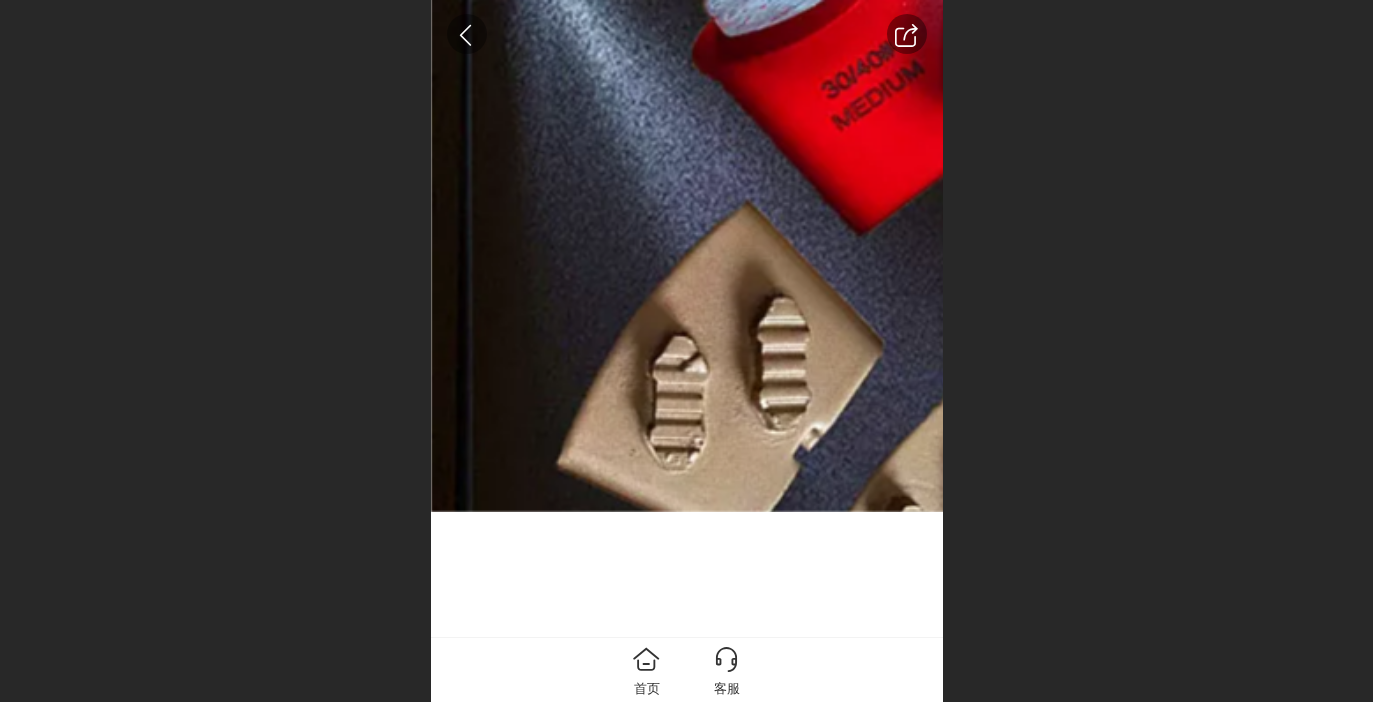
async function draw(canvas) {
  canvas.width = 1373;
  canvas.height = 702;
  const ctx = canvas.getContext('2d');
  ctx.miterLimit = 4;
  ctx.fontKerning = 'normal';
  function label(s, x, y, font, color) {
    ctx.font = font;
    ctx.fillStyle = color;
    ctx.fillText(s, x, y);
  }
  function rect(x, y, w, h, color) {
    ctx.fillStyle = color;
    ctx.fillRect(x, y, w, h);
  }
  async function image(src, x, y, w, h) {
    const img = new Image();
    img.src = src;
    await img.decode();
    ctx.drawImage(img, x, y, w, h);
  }

  rect(0, 0, 1373, 702, '#fff');
  rect(0, 0, 431, 702, '#282828');
  await image('assets/img1.png', 431, 0, 512, 512);
  ctx.fillStyle = '#00000066';
  ctx.beginPath();
  ctx.arc(467, 34, 20, 0, 2 * Math.PI);
  ctx.fill();
  label('򰊔', 455, 44, '21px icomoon', '#fff');
  ctx.fillStyle = '#00000066';
  ctx.beginPath();
  ctx.arc(907, 34, 20, 0, 2 * Math.PI);
  ctx.fill();
  label('򰌑', 895, 45, '23px icomoon', '#fff');
  rect(431, 637, 512, 1, '#f3f3f3');
  label('򰌓', 633, 670, '26px icomoon', '#333');
  label('首页', 634, 693, '500 13px WenQuanYi Zen Hei', '#333');
  label('򰊘', 714, 670, '25px icomoon', '#333');
  label('客服', 714, 693, '500 13px WenQuanYi Zen Hei', '#333');
  rect(943, 0, 430, 702, '#282828');
}

draw(document.querySelector('canvas'));
